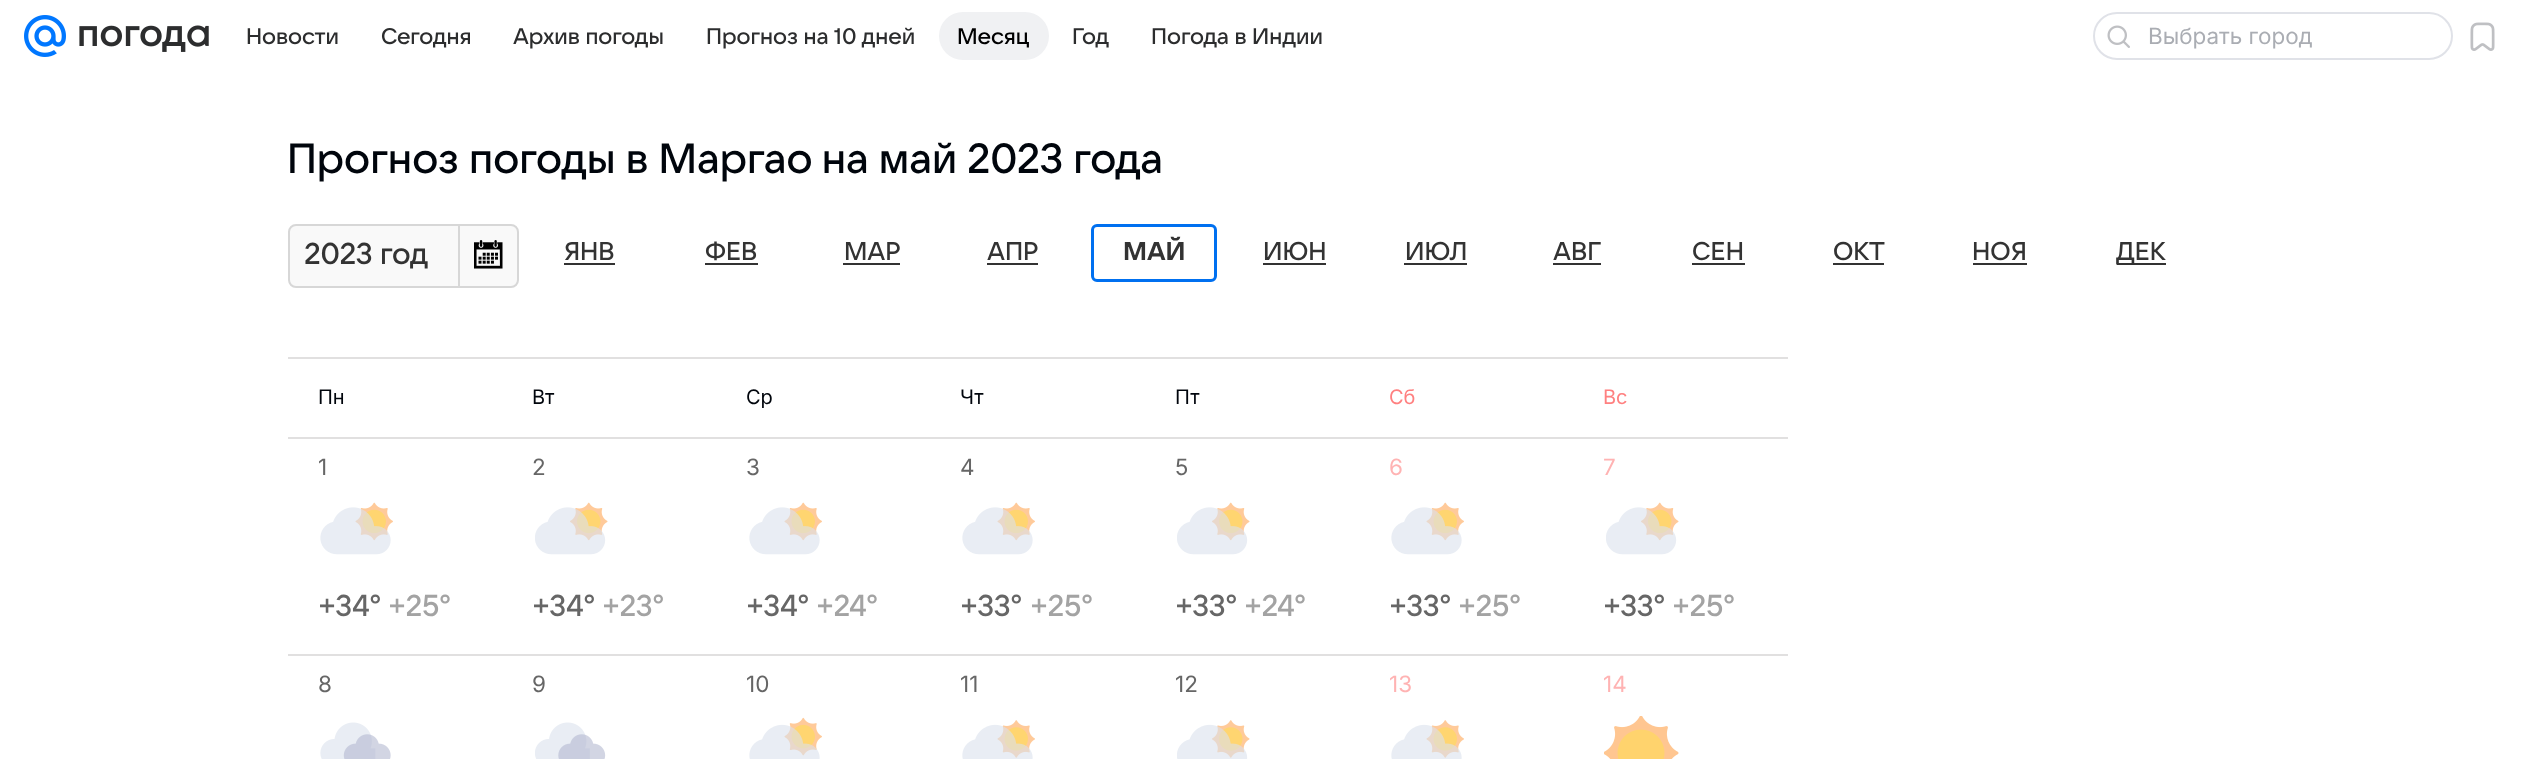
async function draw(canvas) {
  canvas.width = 2524;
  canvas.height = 759;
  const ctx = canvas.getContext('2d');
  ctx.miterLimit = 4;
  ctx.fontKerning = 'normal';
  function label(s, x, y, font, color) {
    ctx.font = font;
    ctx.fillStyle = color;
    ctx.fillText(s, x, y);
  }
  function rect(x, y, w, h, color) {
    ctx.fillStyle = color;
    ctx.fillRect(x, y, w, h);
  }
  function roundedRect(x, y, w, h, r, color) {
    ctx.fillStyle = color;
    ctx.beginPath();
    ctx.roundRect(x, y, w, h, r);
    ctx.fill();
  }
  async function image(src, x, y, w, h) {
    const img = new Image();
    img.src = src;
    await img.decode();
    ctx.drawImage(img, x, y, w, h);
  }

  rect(0, 0, 2524, 759, '#fff');
  await image('assets/img1.png', 24, 15, 42, 42);
  await image('assets/img2.png', 79, 25, 130, 27);
  label('Новости', 246, 44, '500 22.5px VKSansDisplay', '#2c2d2e');
  label('Сегодня', 381, 44, '500 22.5px VKSansDisplay', '#2c2d2e');
  label('Архив погоды', 513, 44, '500 22.5px VKSansDisplay', '#2c2d2e');
  label('Прогноз на 10 дней', 706, 44, '500 22.5px VKSansDisplay', '#2c2d2e');
  roundedRect(939, 12, 110, 48, 24, '#f0f1f3');
  label('Месяц', 957, 44, '500 22.5px VKSansDisplay', '#000');
  label('Год', 1072, 44, '500 22.5px VKSansDisplay', '#2c2d2e');
  label('Погода в Индии', 1151, 44, '500 22.5px VKSansDisplay', '#2c2d2e');
  ctx.beginPath();
  ctx.roundRect(2094, 13, 358, 46, 23);
  ctx.strokeStyle = '#e0e2e8';
  ctx.lineWidth = 2;
  ctx.stroke();
  await image('assets/img3.png', 2107, 25, 23, 23);
  label('Выбрать город', 2148, 44, '22.5px "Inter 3"', '#aaadb3');
  await image('assets/img4.png', 2470, 22, 25, 29);
  label('Прогноз погоды в Маргао на май 2023 года', 287, 173, '500 42px VKSansDisplay', '#00050c');
  ctx.save();
  ctx.beginPath();
  ctx.roundRect(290, 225, 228, 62, 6);
  ctx.clip();
  ctx.fillStyle = '#00000033';
  ctx.filter = 'blur(1.5px)';
  ctx.beginPath();
  ctx.roundRect(290, 228, 228, 62, 8);
  ctx.fill();
  ctx.filter = 'none';
  ctx.restore();
  ctx.fillStyle = '#f9f9f9';
  ctx.beginPath();
  ctx.roundRect(289, 225, 229, 62, 7);
  ctx.fill();
  ctx.strokeStyle = '#d7d7d7';
  ctx.stroke();
  label('2023 год', 304, 264, '500 30px VKSansDisplay', '#333');
  rect(458, 225, 2, 62, '#d7d7d7');
  await image('assets/img5.png', 474, 240, 29, 29);
  label('ЯНВ', 564, 260, '500 25.5px VKSansDisplay', '#333');
  rect(564, 263, 51, 2, '#333');
  label('ФЕВ', 705, 260, '500 25.5px VKSansDisplay', '#333');
  rect(705, 263, 53, 2, '#333');
  label('МАР', 844, 260, '500 25.5px VKSansDisplay', '#333');
  rect(843, 263, 57, 2, '#333');
  label('АПР', 987, 260, '500 25.5px VKSansDisplay', '#333');
  rect(987, 263, 51, 2, '#333');
  ctx.beginPath();
  ctx.roundRect(1092.5, 225.5, 123, 55, 4.5);
  ctx.strokeStyle = '#0070f0';
  ctx.lineWidth = 3;
  ctx.stroke();
  label('МАЙ', 1123, 260, 'bold 25.5px VKSansDisplay', '#333');
  label('ИЮН', 1263, 260, '500 25.5px VKSansDisplay', '#333');
  rect(1263, 263, 63, 2, '#333');
  label('ИЮЛ', 1405, 260, '500 25.5px VKSansDisplay', '#333');
  rect(1404, 263, 63, 2, '#333');
  label('АВГ', 1553, 260, '500 25.5px VKSansDisplay', '#333');
  rect(1553, 263, 48, 2, '#333');
  label('СЕН', 1692, 260, '500 25.5px VKSansDisplay', '#333');
  rect(1692, 263, 53, 2, '#333');
  label('ОКТ', 1833, 260, '500 25.5px VKSansDisplay', '#333');
  rect(1833, 263, 51, 2, '#333');
  label('НОЯ', 1972, 260, '500 25.5px VKSansDisplay', '#333');
  rect(1973, 263, 54, 2, '#333');
  rect(2117, 263, 49, 2, '#333');
  label('ДЕК', 2116, 260, '500 25.5px VKSansDisplay', '#333');
  rect(288, 357, 1500, 2, '#e1e0e0');
  rect(288, 437, 1500, 2, '#e1e0e0');
  label('Пн', 318, 404, '20px Inter', '#00050c');
  label('Вт', 532, 404, '20px Inter', '#00050c');
  label('Ср', 746, 404, '20px Inter', '#00050c');
  label('Чт', 960, 404, '20px Inter', '#00050c');
  label('Пт', 1175, 404, '20px Inter', '#00050c');
  label('Сб', 1389, 404, '20px Inter', '#ff8080');
  label('Вс', 1603, 404, '20px Inter', '#ff8080');
  rect(288, 654, 1500, 2, '#e1e0e0');
  label('1', 318, 475, '22.5px Inter', '#666');
  await image('assets/img6.png', 320, 502, 73, 53);
  label('+34°', 318, 616, '500 30px VKSansDisplay', '#666');
  label('+25°', 388, 616, '500 30px VKSansDisplay', '#a3a3a3');
  label('2', 532, 475, '22.5px Inter', '#666');
  await image('assets/img7.png', 535, 502, 73, 53);
  label('+34°', 532, 616, '500 30px VKSansDisplay', '#666');
  label('+23°', 602, 616, '500 30px VKSansDisplay', '#a3a3a3');
  label('3', 746, 475, '22.5px Inter', '#666');
  await image('assets/img6.png', 749, 502, 73, 53);
  label('+34°', 746, 616, '500 30px VKSansDisplay', '#666');
  label('+24°', 816, 616, '500 30px VKSansDisplay', '#a3a3a3');
  label('4', 960, 475, '22.5px Inter', '#666');
  await image('assets/img6.png', 962, 502, 73, 53);
  label('+33°', 960, 616, '500 30px VKSansDisplay', '#666');
  label('+25°', 1030, 616, '500 30px VKSansDisplay', '#a3a3a3');
  label('5', 1175, 475, '22.5px "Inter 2"', '#666');
  await image('assets/img7.png', 1177, 502, 73, 53);
  label('+33°', 1175, 616, '500 30px VKSansDisplay', '#666');
  label('+24°', 1244, 616, '500 30px VKSansDisplay', '#a3a3a3');
  label('6', 1389, 475, '22.5px Inter', '#ffb3b3');
  await image('assets/img6.png', 1391, 502, 73, 53);
  label('+33°', 1389, 616, '500 30px VKSansDisplay', '#666');
  label('+25°', 1458, 616, '500 30px VKSansDisplay', '#a3a3a3');
  label('7', 1603, 475, '22.5px Inter', '#ffb3b3');
  await image('assets/img7.png', 1606, 502, 73, 53);
  label('+33°', 1603, 616, '500 30px VKSansDisplay', '#666');
  label('+25°', 1672, 616, '500 30px VKSansDisplay', '#a3a3a3');
  label('8', 318, 692, '22.5px Inter', '#666');
  await image('assets/img8.png', 320, 722, 71, 37);
  label('9', 532, 692, '22.5px Inter', '#666');
  await image('assets/img9.png', 535, 722, 71, 37);
  label('10', 746, 692, '22.5px Inter', '#666');
  await image('assets/img10.png', 749, 717, 73, 42);
  label('11', 960, 692, '22.5px Inter', '#666');
  await image('assets/img11.png', 962, 720, 73, 39);
  label('12', 1175, 692, '22.5px Inter', '#666');
  await image('assets/img12.png', 1177, 720, 73, 39);
  label('13', 1389, 692, '22.5px Inter', '#ffb3b3');
  await image('assets/img11.png', 1391, 720, 73, 39);
  label('14', 1603, 692, '22.5px Inter', '#ffb3b3');
  await image('assets/img13.png', 1604, 716, 75, 43);
}

draw(document.querySelector('canvas'));
